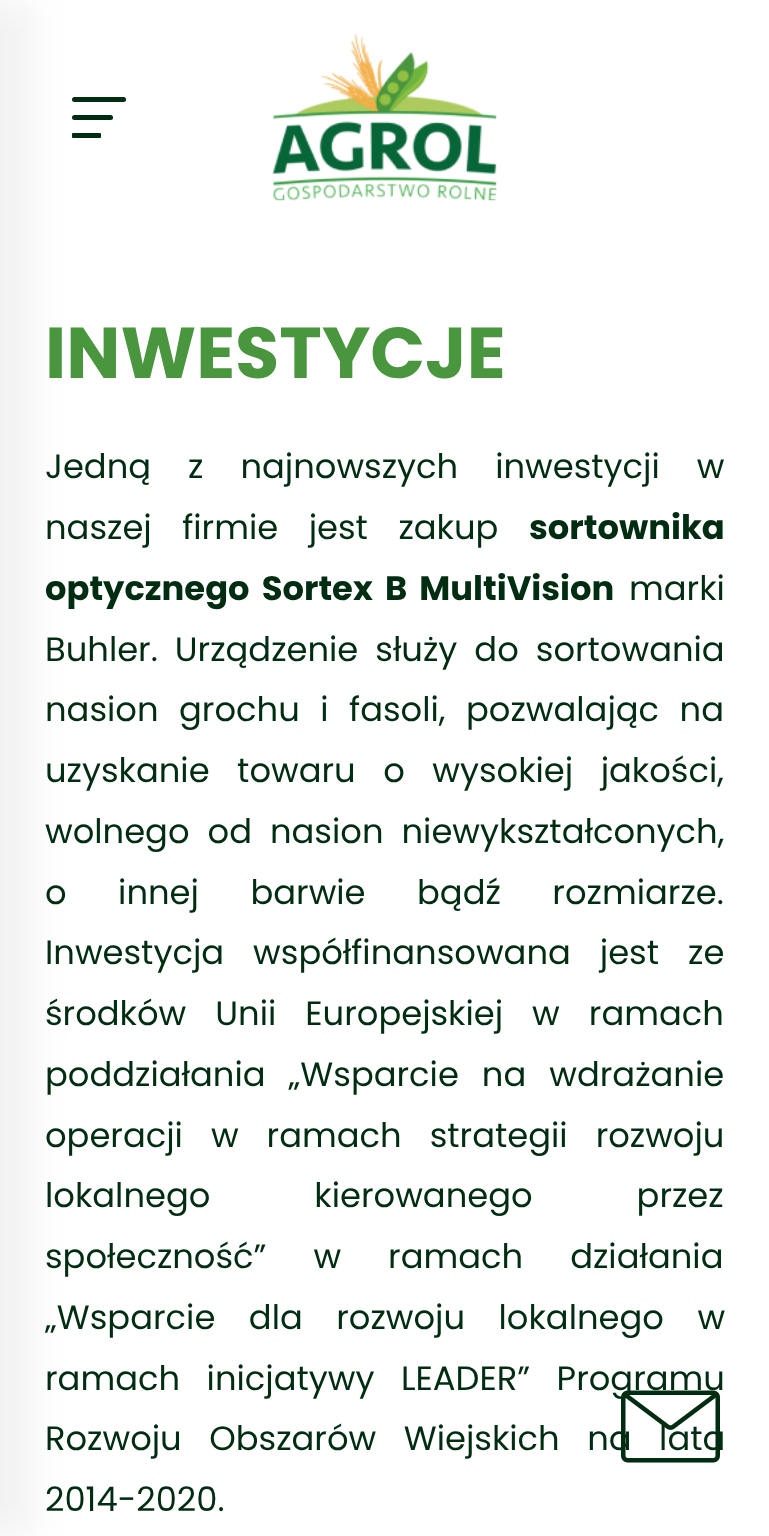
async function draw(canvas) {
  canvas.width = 769;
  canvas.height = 1536;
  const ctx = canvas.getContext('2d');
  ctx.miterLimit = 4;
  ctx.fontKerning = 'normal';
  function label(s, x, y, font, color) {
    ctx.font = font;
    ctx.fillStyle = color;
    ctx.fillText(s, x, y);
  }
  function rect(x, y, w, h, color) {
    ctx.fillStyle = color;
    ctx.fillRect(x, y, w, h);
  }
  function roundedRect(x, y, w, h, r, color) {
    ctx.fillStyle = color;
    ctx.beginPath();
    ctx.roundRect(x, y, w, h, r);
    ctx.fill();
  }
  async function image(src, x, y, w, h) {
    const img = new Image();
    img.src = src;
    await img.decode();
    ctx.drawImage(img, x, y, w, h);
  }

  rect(0, 0, 769, 1536, '#fff');
  ctx.fillStyle = '#0000000d';
  ctx.filter = 'blur(17px)';
  ctx.beginPath();
  ctx.rect(-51, 0, 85, 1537);
  ctx.fill();
  ctx.filter = 'none';
  roundedRect(72, 97, 54, 5, 2.5, '#002c11');
  roundedRect(72, 115, 41, 5, 2.5, '#002c11');
  roundedRect(72, 133, 29, 5, 1, '#002c11');
  await image('assets/img1.png', 272, 33, 226, 168);
  label('INWESTYCJE', 45, 378, 'bold 72px Poppins', '#49963e');
  ctx.wordSpacing = '28px';
  label('Jedną z najnowszych inwestycji w', 45, 478, '33.75px Poppins', '#002c11');
  ctx.wordSpacing = '21.5px';
  label('naszej firmie jest zakup', 45, 539, '33.75px Poppins', '#002c11');
  ctx.wordSpacing = '0px';
  label('sortownika', 529, 539, 'bold 33.75px Poppins', '#002c11');
  ctx.wordSpacing = '5px';
  label('optycznego Sortex B MultiVision', 45, 600, 'bold 33.75px Poppins', '#002c11');
  ctx.wordSpacing = '0px';
  label('marki', 629, 600, '33.75px Poppins', '#002c11');
  ctx.wordSpacing = '8px';
  label('Buhler. Urządzenie służy do sortowania', 45, 661, '33.75px Poppins', '#002c11');
  ctx.wordSpacing = '11.5px';
  label('nasion grochu i fasoli, pozwalając na', 45, 721, '33.75px Poppins', '#002c11');
  ctx.wordSpacing = '18.5px';
  label('uzyskanie towaru o wysokiej jakości,', 45, 782, '33.75px Poppins', '#002c11');
  ctx.wordSpacing = '9px';
  label('wolnego od nasion niewykształconych,', 45, 843, '33.75px Poppins', '#002c11');
  ctx.wordSpacing = '42.5px';
  label('o innej barwie bądź rozmiarze.', 45, 904, '33.75px Poppins', '#002c11');
  ctx.wordSpacing = '20px';
  label('Inwestycja współfinansowana jest ze', 45, 964, '33.75px Poppins', '#002c11');
  label('środków Unii Europejskiej w ramach', 45, 1025, '33.75px Poppins', '#002c11');
  ctx.wordSpacing = '14px';
  label('poddziałania „Wsparcie na wdrażanie', 45, 1086, '33.75px Poppins', '#002c11');
  ctx.wordSpacing = '19px';
  label('operacji w ramach strategii rozwoju', 45, 1147, '33.75px Poppins', '#002c11');
  ctx.wordSpacing = '95px';
  label('lokalnego kierowanego przez', 45, 1207, '33.75px Poppins', '#002c11');
  ctx.wordSpacing = '38px';
  label('społeczność” w ramach działania', 45, 1268, '33.75px Poppins', '#002c11');
  ctx.wordSpacing = '24.5px';
  label('„Wsparcie dla rozwoju lokalnego w', 45, 1329, '33.75px Poppins', '#002c11');
  ctx.wordSpacing = '17.5px';
  label('ramach inicjatywy LEADER” Programu', 45, 1390, '33.75px Poppins', '#002c11');
  ctx.wordSpacing = '18.5px';
  label('Rozwoju Obszarów Wiejskich na lata', 45, 1450, '33.75px Poppins', '#002c11');
  ctx.wordSpacing = '0px';
  label('2014-2020.', 45, 1511, '33.75px Poppins', '#002c11');
  await image('assets/img2.png', 621, 1390, 99, 73);
}

draw(document.querySelector('canvas'));
